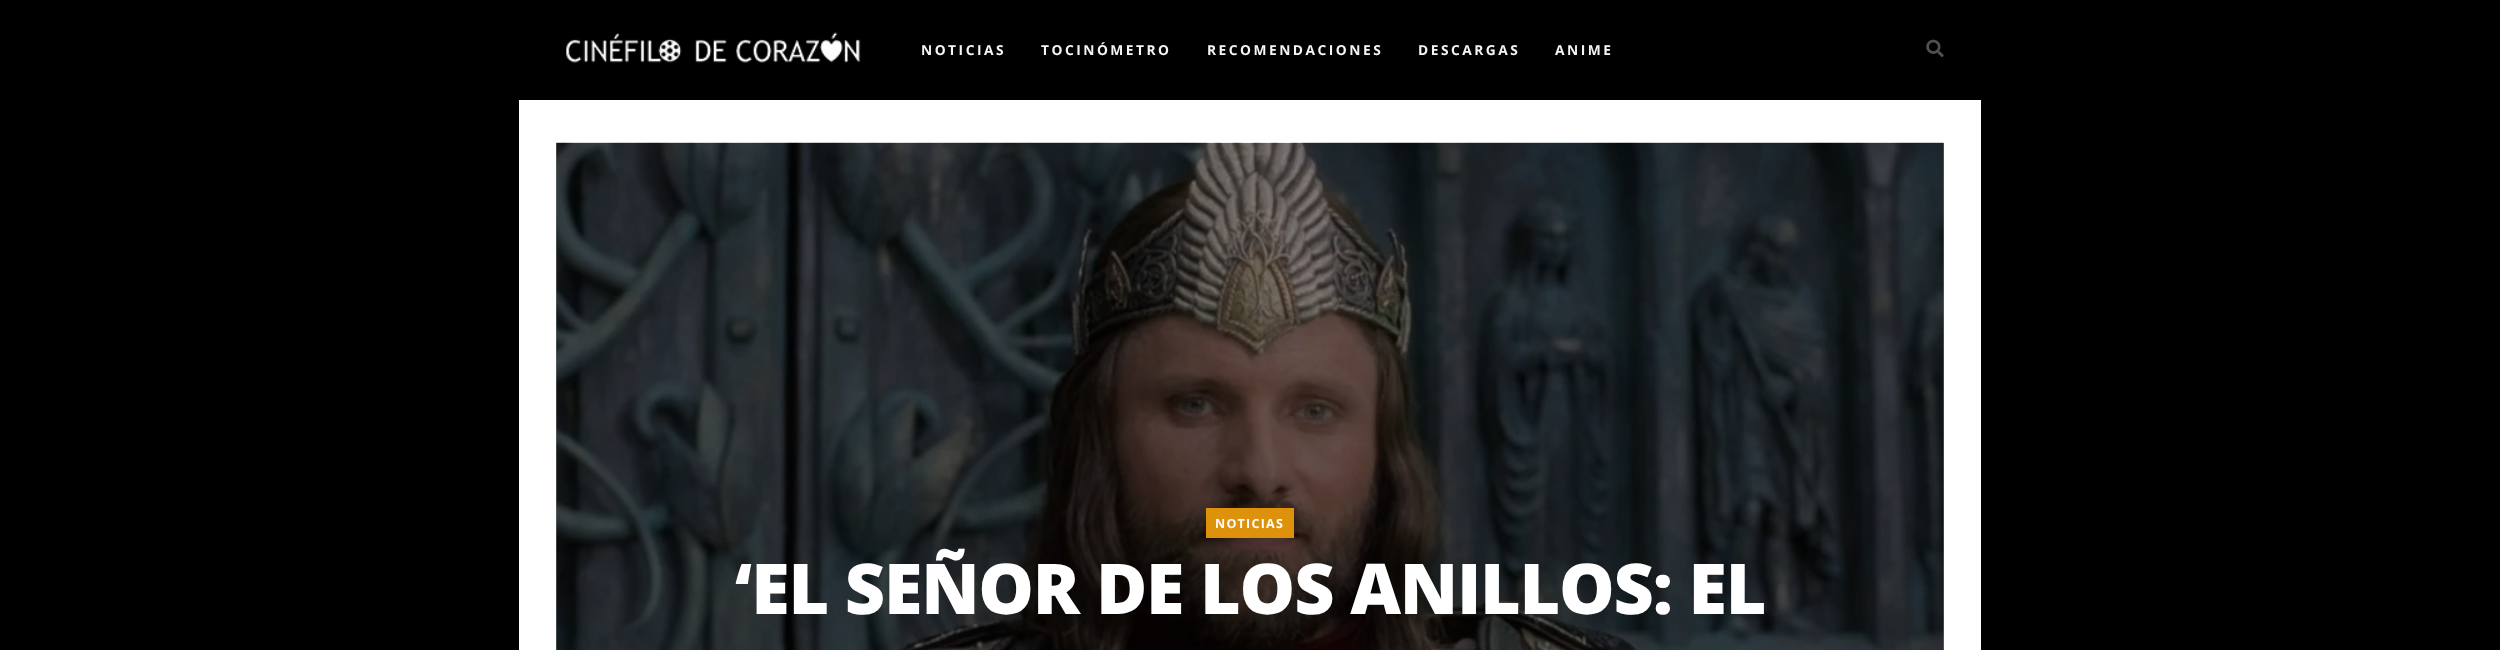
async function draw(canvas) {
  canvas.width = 2500;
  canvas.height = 650;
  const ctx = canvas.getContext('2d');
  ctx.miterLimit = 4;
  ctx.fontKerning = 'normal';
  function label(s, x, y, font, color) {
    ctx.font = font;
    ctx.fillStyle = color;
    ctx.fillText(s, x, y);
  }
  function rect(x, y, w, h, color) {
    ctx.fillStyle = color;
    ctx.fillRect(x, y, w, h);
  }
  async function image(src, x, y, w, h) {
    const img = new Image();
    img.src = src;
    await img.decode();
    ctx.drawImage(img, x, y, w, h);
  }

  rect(0, 0, 2500, 650, '#000');
  await image('assets/img1.png', 566, 32, 295, 31);
  ctx.letterSpacing = '2.5px';
  label('NOTICIAS', 921, 55, 'bold 13.75px Open Sans', '#f5f5f5');
  label('TOCINÓMETRO', 1041, 55, 'bold 13.75px Open Sans', '#f5f5f5');
  label('RECOMENDACIONES', 1207, 55, 'bold 13.75px Open Sans', '#f5f5f5');
  label('DESCARGAS', 1418, 55, 'bold 13.75px Open Sans', '#f5f5f5');
  label('ANIME', 1555, 55, 'bold 13.75px Open Sans', '#f5f5f5');
  await image('assets/img2.png', 1926, 39, 18, 18);
  rect(519, 100, 1462, 550, '#fff');
  rect(556, 143, 1388, 507, '#808080');
  await image('assets/img3.png', 556, 142, 1388, 508);
  rect(1206, 508, 88, 30, '#de910b');
  ctx.letterSpacing = '1.25px';
  label('NOTICIAS', 1215, 528, 'bold 12.5px Open Sans', '#fff');
  ctx.letterSpacing = '-1.25px';
  label('‘EL SEÑOR DE LOS ANILLOS: EL', 735, 614, '800 70px Open Sans', '#fff');
}

draw(document.querySelector('canvas'));
